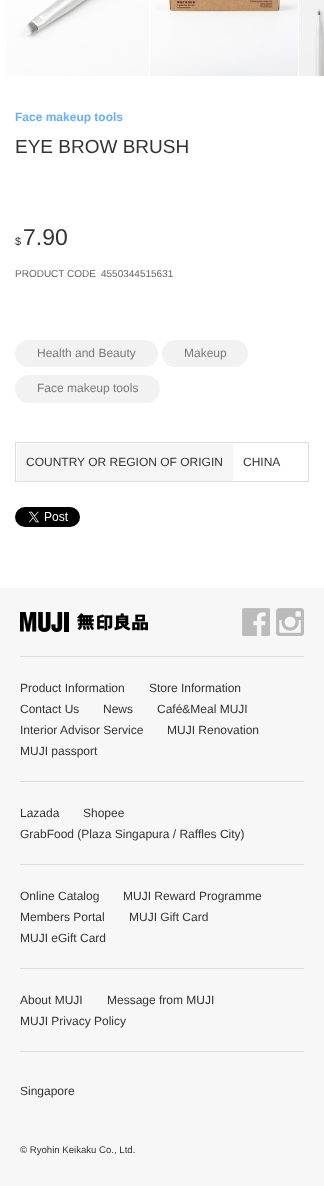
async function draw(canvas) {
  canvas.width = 324;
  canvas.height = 1186;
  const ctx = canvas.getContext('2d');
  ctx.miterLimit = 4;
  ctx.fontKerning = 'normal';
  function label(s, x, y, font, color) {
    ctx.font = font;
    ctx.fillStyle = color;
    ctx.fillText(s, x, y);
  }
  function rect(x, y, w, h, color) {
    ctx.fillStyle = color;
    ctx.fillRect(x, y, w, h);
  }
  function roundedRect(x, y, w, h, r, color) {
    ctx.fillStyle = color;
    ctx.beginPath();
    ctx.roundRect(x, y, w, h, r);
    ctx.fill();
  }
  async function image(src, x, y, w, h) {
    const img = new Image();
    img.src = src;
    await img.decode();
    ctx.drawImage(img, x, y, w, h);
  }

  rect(0, 0, 324, 1186, '#fff');
  await image('assets/img1.png', 6, 0, 143, 76);
  await image('assets/img2.png', 150, 0, 148, 76);
  await image('assets/img3.png', 299, 0, 25, 76);
  label('Face makeup tools', 15, 121, 'bold 12px Liberation Sans', '#67affd');
  label('EYE BROW BRUSH', 15, 153, '19px Liberation Sans', '#333');
  label('$', 15, 245, '11px Liberation Sans', '#333');
  label('7.90', 23, 245, '23px Liberation Sans', '#333');
  label('PRODUCT CODE', 15, 277, '10px Liberation Sans', '#666');
  label('4550344515631', 101, 277, '10px Liberation Sans', '#666');
  roundedRect(15, 340, 143, 27, 13.5, '#f2f2f2');
  label('Health and Beauty', 37, 357, '12px Liberation Sans', '#7a7a7a');
  roundedRect(162, 340, 86, 27, 13.5, '#f2f2f2');
  label('Makeup', 184, 357, '12px Liberation Sans', '#7a7a7a');
  roundedRect(15, 375, 145, 28, 14, '#f2f2f2');
  label('Face makeup tools', 37, 392, '12px Liberation Sans', '#7a7a7a');
  rect(17, 444, 216, 37, '#f5f5f5');
  rect(15, 442, 294, 1, '#ddd');
  rect(308, 442, 1, 40, '#ddd');
  rect(15, 481, 294, 1, '#ddd');
  rect(15, 442, 1, 40, '#ddd');
  label('COUNTRY OR REGION OF ORIGIN', 26, 466, '12px Liberation Sans', '#333');
  label('CHINA', 243, 466, '12px Liberation Sans', '#333');
  await image('assets/img4.png', 15, 507, 65, 20);
  rect(0, 588, 324, 598, '#f7f7f7');
  rect(20, 656, 284, 1, '#dedede');
  await image('assets/img5.png', 20, 612, 128, 20);
  await image('assets/img6.png', 242, 608, 28, 28);
  await image('assets/img7.png', 276, 608, 28, 28);
  rect(20, 781, 284, 1, '#dedede');
  label('Product Information', 20, 692, '12px Liberation Sans', '#333');
  label('Store Information', 149, 692, '12px Liberation Sans', '#333');
  label('Contact Us', 20, 713, '12px Liberation Sans', '#333');
  label('News', 103, 713, '12px Liberation Sans', '#333');
  label('Café&Meal MUJI', 157, 713, '12px Liberation Sans', '#333');
  label('Interior Advisor Service', 20, 734, '12px Liberation Sans', '#333');
  label('MUJI Renovation', 167, 734, '12px Liberation Sans', '#333');
  label('MUJI passport', 20, 755, '12px Liberation Sans', '#333');
  rect(20, 864, 284, 1, '#dedede');
  label('Lazada', 20, 817, '12px Liberation Sans', '#333');
  label('Shopee', 83, 817, '12px Liberation Sans', '#333');
  label('GrabFood (Plaza Singapura / Raffles City)', 20, 838, '12px Liberation Sans', '#333');
  rect(20, 968, 284, 1, '#dedede');
  label('Online Catalog', 20, 900, '12px Liberation Sans', '#333');
  label('MUJI Reward Programme', 123, 900, '12px Liberation Sans', '#333');
  label('Members Portal', 20, 921, '12px Liberation Sans', '#333');
  label('MUJI Gift Card', 129, 921, '12px Liberation Sans', '#333');
  label('MUJI eGift Card', 20, 942, '12px Liberation Sans', '#333');
  rect(20, 1051, 284, 1, '#dedede');
  label('About MUJI', 20, 1004, '12px Liberation Sans', '#333');
  label('Message from MUJI', 107, 1004, '12px Liberation Sans', '#333');
  label('MUJI Privacy Policy', 20, 1025, '12px Liberation Sans', '#333');
  label('Singapore', 20, 1095, '12px Liberation Sans', '#333');
  label('© Ryohin Keikaku Co., Ltd.', 20, 1153, '9.6px Liberation Sans', '#333');
}

draw(document.querySelector('canvas'));
